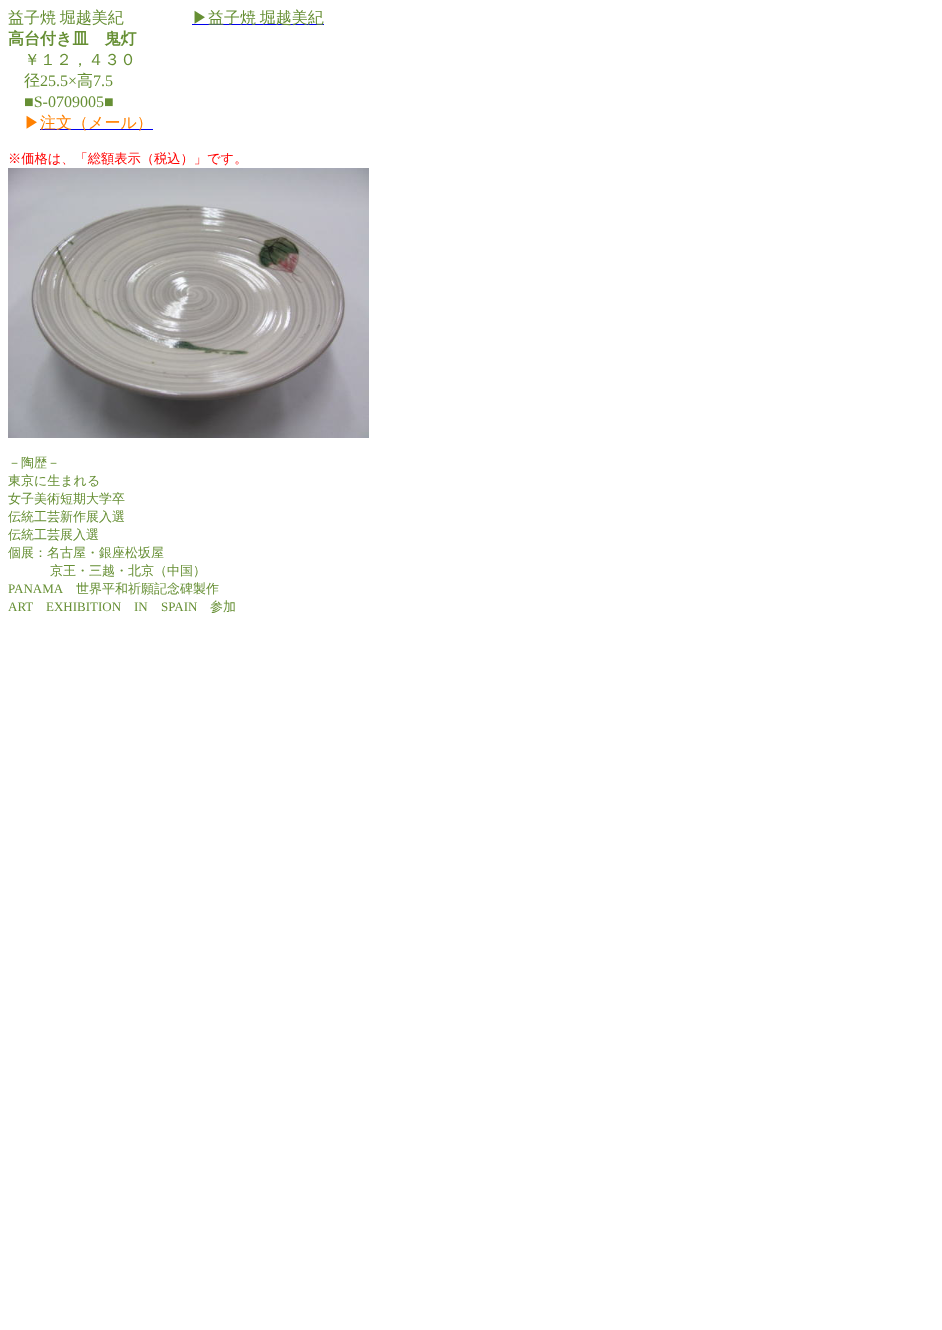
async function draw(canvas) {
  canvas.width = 942;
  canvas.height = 1330;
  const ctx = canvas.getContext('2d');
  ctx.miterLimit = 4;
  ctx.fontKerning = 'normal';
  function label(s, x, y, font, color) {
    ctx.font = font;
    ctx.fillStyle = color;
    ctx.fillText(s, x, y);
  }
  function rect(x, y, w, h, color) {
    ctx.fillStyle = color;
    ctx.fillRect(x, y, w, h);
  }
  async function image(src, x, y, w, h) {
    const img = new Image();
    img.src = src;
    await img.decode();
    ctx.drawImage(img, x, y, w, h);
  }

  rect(0, 0, 942, 1330, '#fff');
  ctx.wordSpacing = '-1px';
  label('益子焼 堀越美紀', 8, 23, '500 16px WenQuanYi Zen Hei', '#668f34');
  rect(192, 24, 132, 1, '#00e');
  label('▶益子焼 堀越美紀', 192, 23, '500 16px WenQuanYi Zen Hei', '#668f34');
  ctx.wordSpacing = '0px';
  label('高台付き皿　鬼灯', 8, 44, 'bold 16px WenQuanYi Zen Hei', '#668f34');
  label('￥１２，４３０', 24, 65, '500 16px WenQuanYi Zen Hei', '#668f34');
  label('径', 24, 86, '500 16px WenQuanYi Zen Hei', '#668f34');
  label('25.5×', 40, 86, '16px Liberation Serif', '#668f34');
  label('高', 77, 86, '500 16px WenQuanYi Zen Hei', '#668f34');
  label('7.5', 93, 86, '16px Liberation Serif', '#668f34');
  label('■S-0709005■', 24, 107, '16px Liberation Serif', '#668f34');
  label('▶', 24, 128, '500 16px WenQuanYi Zen Hei', '#ff8000');
  rect(40, 129, 113, 1, '#00e');
  label('注文（メール）', 40, 128, '500 16px WenQuanYi Zen Hei', '#ff8000');
  label('※価格は、「総額表示（税込）」です。', 8, 163, '500 13.25px WenQuanYi Zen Hei', '#f00');
  await image('assets/img1.png', 8, 168, 361, 270);
  label('－陶歴－', 8, 467, '500 13px WenQuanYi Zen Hei', '#668f34');
  label('東京に生まれる', 8, 485, '500 13px WenQuanYi Zen Hei', '#668f34');
  label('女子美術短期大学卒', 8, 503, '500 13px WenQuanYi Zen Hei', '#668f34');
  label('伝統工芸新作展入選', 8, 521, '500 13px WenQuanYi Zen Hei', '#668f34');
  label('伝統工芸展入選', 8, 539, '500 13px WenQuanYi Zen Hei', '#668f34');
  label('個展：名古屋・銀座松坂屋', 8, 557, '500 13px WenQuanYi Zen Hei', '#668f34');
  label('京王・三越・北京（中国）', 50, 575, '500 13px WenQuanYi Zen Hei', '#668f34');
  label('PANAMA', 8, 593, '13px Liberation Serif', '#668f34');
  label('世界平和祈願記念碑製作', 76, 593, '500 13px WenQuanYi Zen Hei', '#668f34');
  label('ART', 8, 611, '13px Liberation Serif', '#668f34');
  label('EXHIBITION', 46, 611, '13px Liberation Serif', '#668f34');
  label('IN', 134, 611, '13px Liberation Serif', '#668f34');
  label('SPAIN', 161, 611, '13px Liberation Serif', '#668f34');
  label('参加', 210, 611, '500 13px WenQuanYi Zen Hei', '#668f34');
}

draw(document.querySelector('canvas'));
